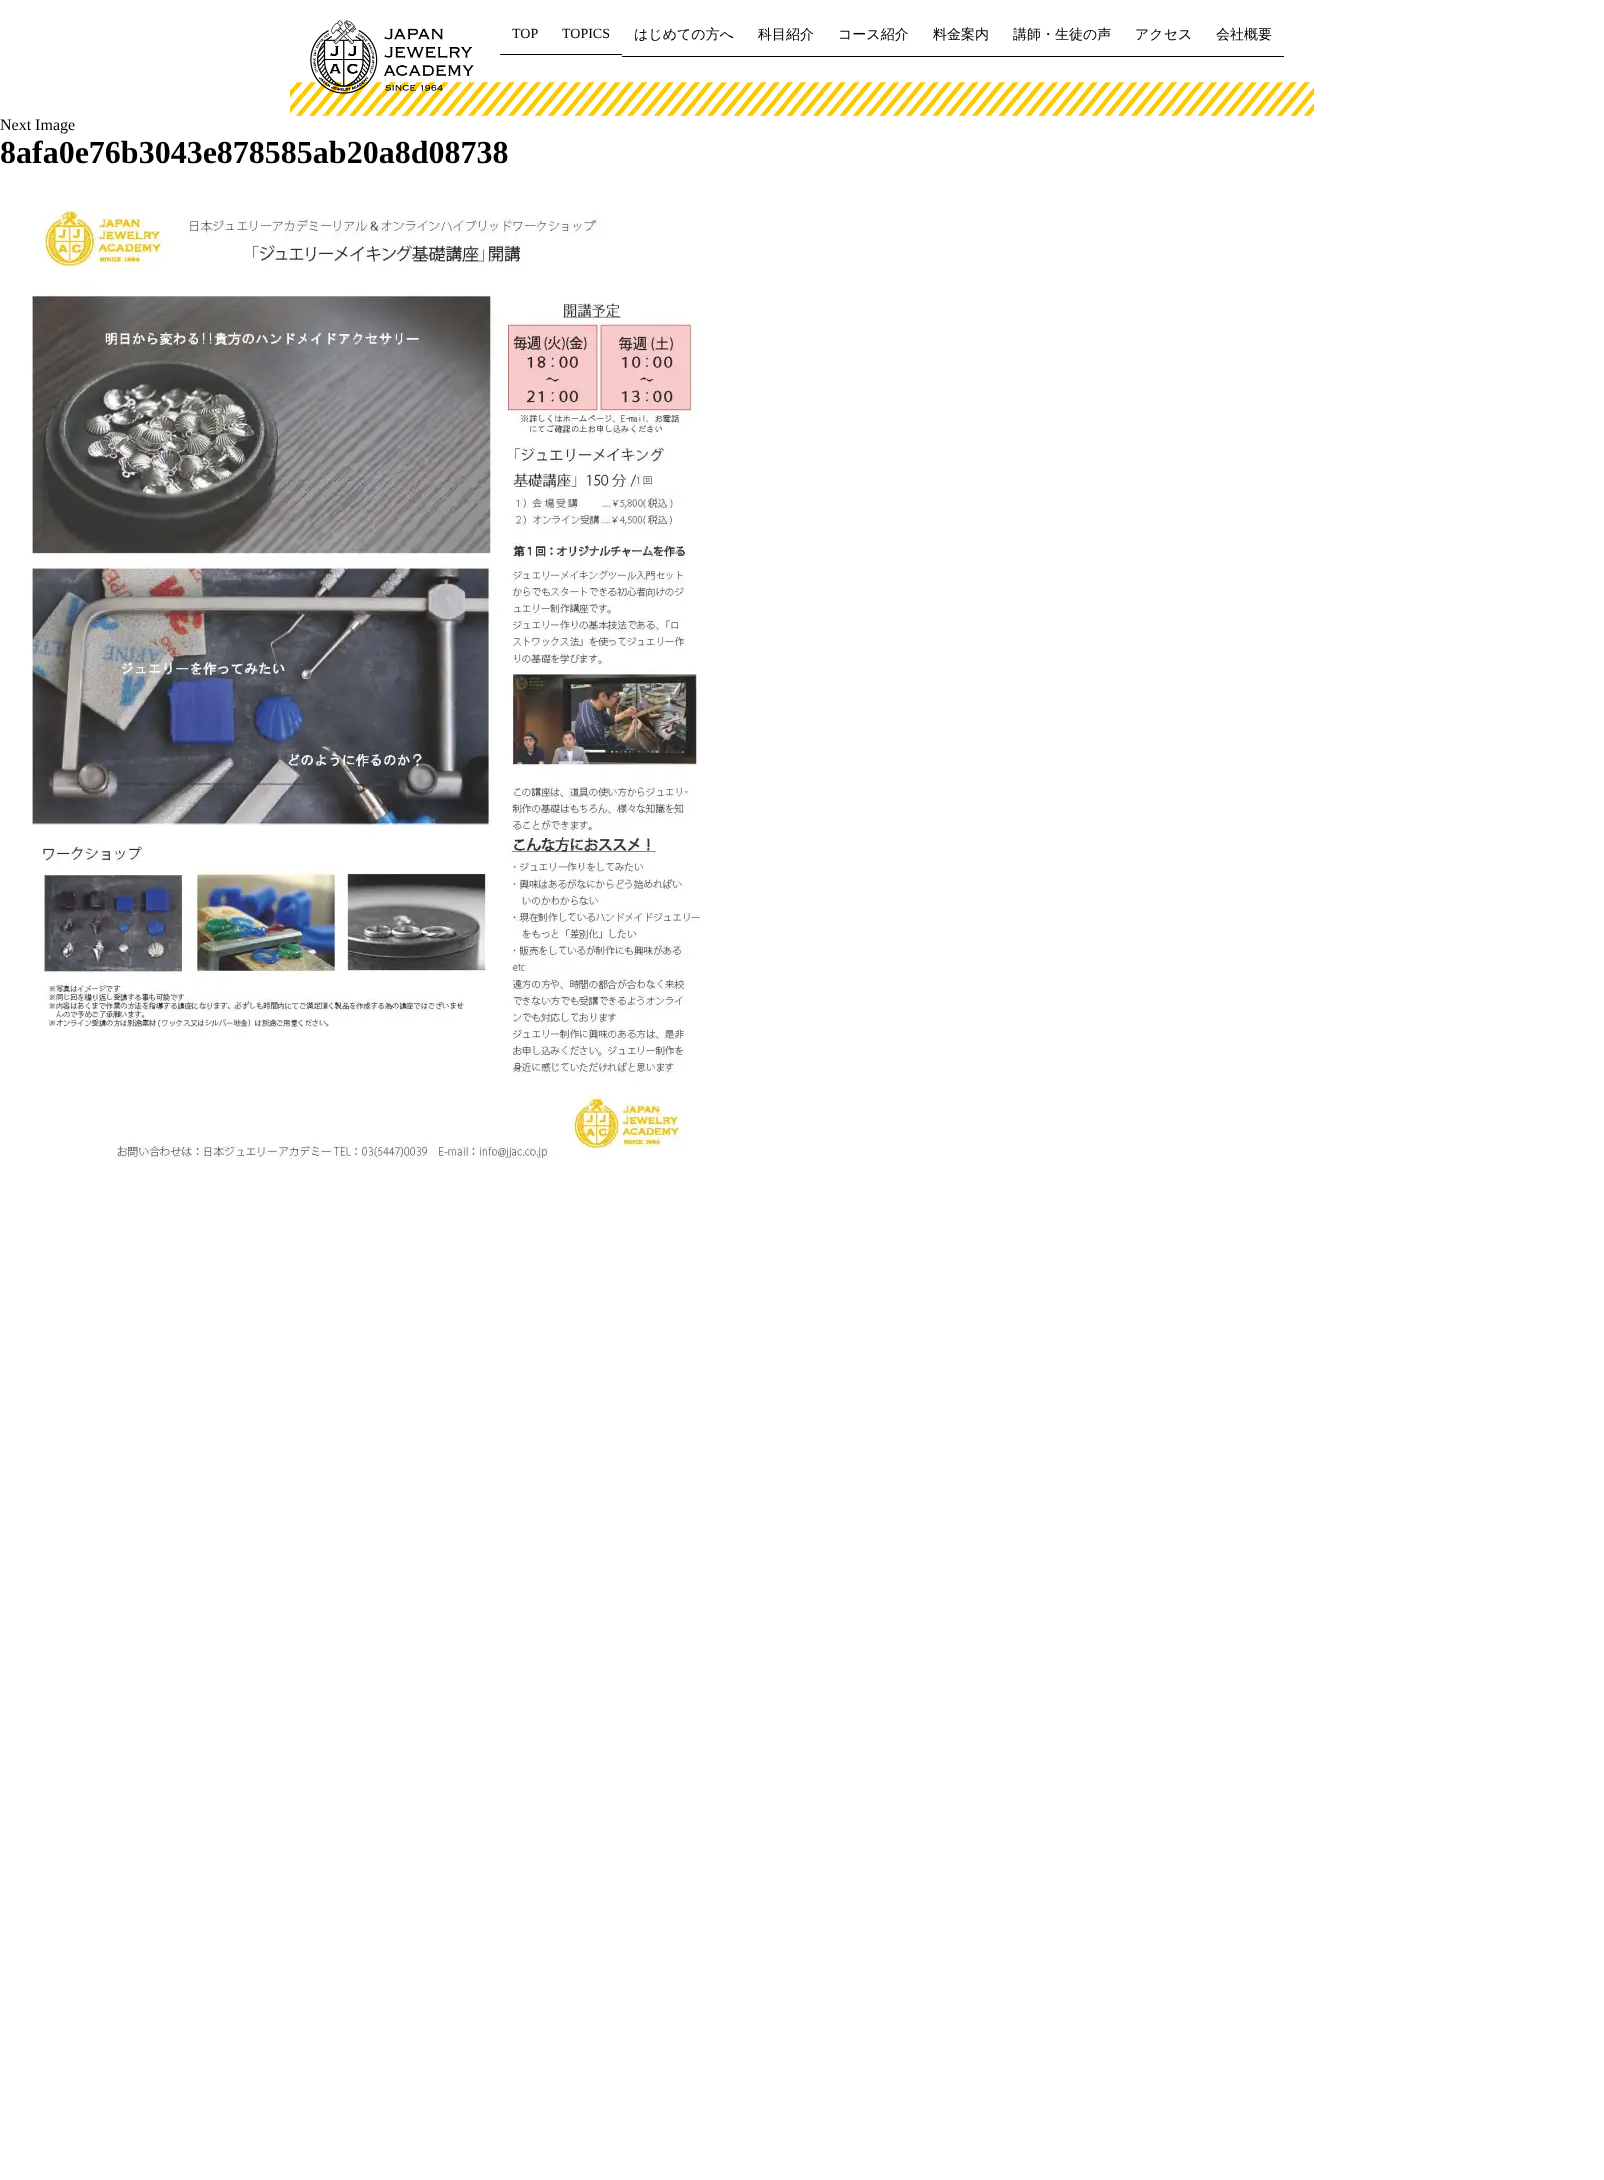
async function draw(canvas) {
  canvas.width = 1604;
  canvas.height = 2180;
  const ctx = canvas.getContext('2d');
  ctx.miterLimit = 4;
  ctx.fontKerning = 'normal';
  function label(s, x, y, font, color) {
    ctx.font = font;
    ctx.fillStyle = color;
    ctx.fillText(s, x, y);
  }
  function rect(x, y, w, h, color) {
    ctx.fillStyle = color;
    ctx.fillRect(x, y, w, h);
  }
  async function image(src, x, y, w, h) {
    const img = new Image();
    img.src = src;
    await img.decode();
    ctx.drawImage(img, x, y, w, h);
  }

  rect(0, 0, 1604, 2180, '#fff');
  await image('assets/img1.png', 290, 82, 1024, 34);
  await image('assets/img2.png', 310, 20, 164, 74);
  label('TOP', 512, 38, '14px Liberation Serif', '#000');
  rect(500, 54, 122, 1, '#000');
  label('TOPICS', 562, 38, '14px Liberation Serif', '#000');
  label('はじめての方へ', 634, 39, '500 14px WenQuanYi Zen Hei', '#000');
  rect(622, 56, 662, 1, '#000');
  label('科目紹介', 758, 39, '500 14px WenQuanYi Zen Hei', '#000');
  label('コース紹介', 838, 39, '500 14px WenQuanYi Zen Hei', '#000');
  label('料金案内', 933, 39, '500 14px WenQuanYi Zen Hei', '#000');
  label('講師・生徒の声', 1013, 39, '500 14px WenQuanYi Zen Hei', '#000');
  label('アクセス', 1135, 39, '500 14px WenQuanYi Zen Hei', '#000');
  label('会社概要', 1216, 39, '500 14px WenQuanYi Zen Hei', '#000');
  label('Next Image', 0, 130, '16px Liberation Serif', '#000');
  label('8afa0e76b3043e878585ab20a8d08738', 0, 163, 'bold 32px Liberation Serif', '#000');
  await image('assets/img3.png', 30, 209, 671, 951);
}

draw(document.querySelector('canvas'));
